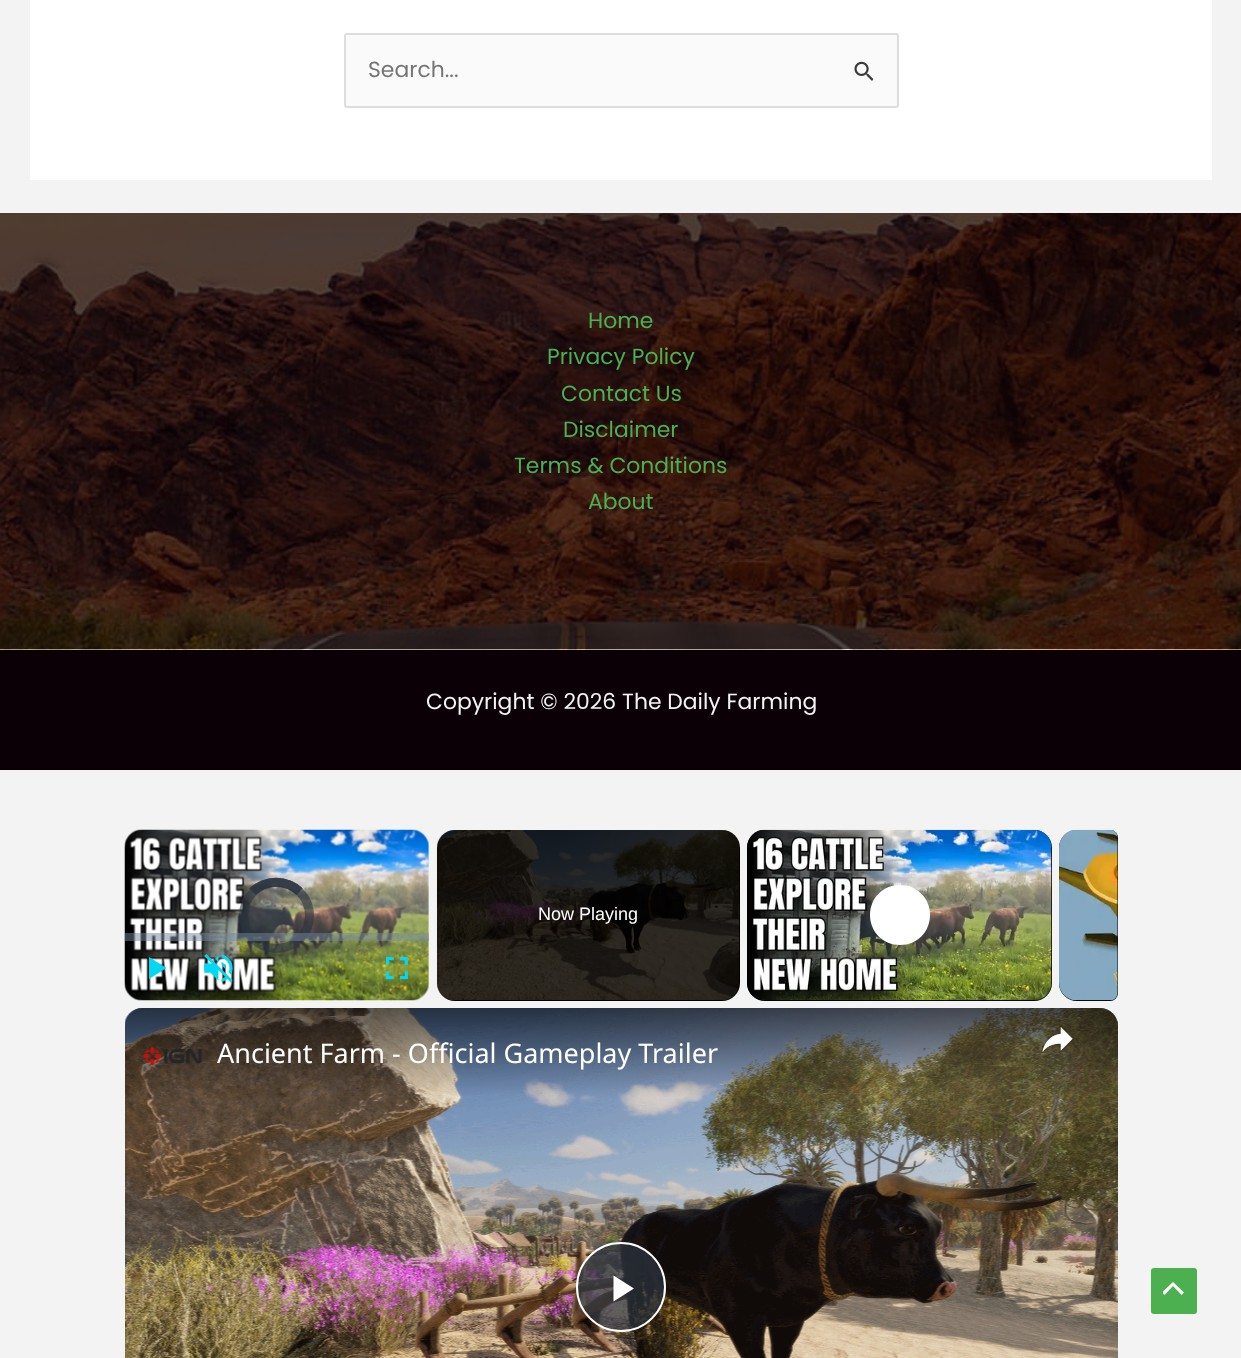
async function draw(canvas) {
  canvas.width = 1241;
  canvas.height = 1358;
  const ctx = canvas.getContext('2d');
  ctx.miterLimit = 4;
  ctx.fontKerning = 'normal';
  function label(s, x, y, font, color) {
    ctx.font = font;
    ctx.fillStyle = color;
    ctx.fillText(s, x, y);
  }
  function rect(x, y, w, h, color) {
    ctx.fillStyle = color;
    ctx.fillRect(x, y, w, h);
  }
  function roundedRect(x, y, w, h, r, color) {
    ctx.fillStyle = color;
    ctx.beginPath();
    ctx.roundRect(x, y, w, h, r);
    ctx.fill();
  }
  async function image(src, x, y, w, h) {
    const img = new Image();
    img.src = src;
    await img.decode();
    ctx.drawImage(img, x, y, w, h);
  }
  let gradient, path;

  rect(0, 0, 1241, 1358, '#f3f3f3');
  rect(30, 0, 1182, 180, '#fff');
  ctx.fillStyle = '#fafafa';
  ctx.beginPath();
  ctx.roundRect(345, 34, 553, 73, 2);
  ctx.fill();
  ctx.strokeStyle = '#ddd';
  ctx.lineWidth = 2;
  ctx.stroke();
  label('Search...', 368, 77, '21.9px Poppins', '#757575');
  await image('assets/img1.png', 854, 61, 19, 20);
  await image('assets/img2.png', 0, 213, 1241, 437);
  label('Home', 588, 328, '21.9px Poppins', '#4caf50');
  label('Privacy Policy', 547, 364, '21.9px Poppins', '#4caf50');
  label('Contact Us', 561, 401, '21.9px Poppins', '#4caf50');
  label('Disclaimer', 563, 437, '21.9px Poppins', '#4caf50');
  label('Terms & Conditions', 514, 473, '21.9px Poppins', '#4caf50');
  label('About', 588, 509, '21.9px Poppins', '#4caf50');
  rect(0, 650, 1241, 120, '#0a0005');
  label('Copyright © 2026 The Daily Farming', 426, 709, '21.9px Poppins', '#f3f3f3');
  ctx.fillStyle = '#f8f8f8';
  ctx.beginPath();
  ctx.arc(414, 842, 12, 0, 2 * Math.PI);
  ctx.fill();
  await image('assets/img3.png', 124, 829, 305, 172);
  ctx.beginPath();
  ctx.arc(276.5, 915.5, 33, 0, 2 * Math.PI);
  ctx.strokeStyle = '#2b333f96';
  ctx.lineWidth = 9;
  ctx.stroke();
  path = new Path2D('M252.5 891.5C265.5 879 286.5 879 299.5 891.5');
  ctx.stroke(path);
  path = new Path2D('M252.5 891.5C265.5 879 286.5 879 299.5 891.5');
  ctx.stroke(path);
  rect(125, 933, 304, 8, '#73859f80');
  ctx.fillStyle = '#03d8f3';
  path = new Path2D('M149 957V979L166.5 968Z');
  ctx.fill(path);
  await image('assets/img4.png', 204, 954, 29, 29);
  await image('assets/img5.png', 385, 957, 23, 23);
  roundedRect(437, 830, 303, 171, 18, '#000');
  await image('assets/img6.png', 436, 830, 304, 170);
  label('Now Playing', 538, 920, '18px Liberation Sans', '#fff');
  roundedRect(747, 830, 305, 171, 18, '#000');
  await image('assets/img7.png', 747, 829, 305, 172);
  ctx.fillStyle = '#fff';
  path = new Path2D('M900 885C883 885 870 898 870 915C870 932 883 945 900 945C917 945 930 932 930 915C930 898 917 885 900 885Z');
  ctx.fill(path);
  ctx.fillStyle = '#000';
  ctx.beginPath();
  ctx.roundRect(1059, 830, 59, 171, [18, 8, 8, 18]);
  ctx.fill();
  await image('assets/img8.png', 1059, 829, 59, 172);
  ctx.fillStyle = '#f8f8f8';
  ctx.beginPath();
  ctx.arc(1103, 1020, 12, 0, 2 * Math.PI);
  ctx.fill();
  await image('assets/img9.png', 125, 1008, 993, 350);
  await image('assets/img10.png', 125, 1008, 993, 18);
  ctx.fillStyle = '#2b333fb3';
  ctx.beginPath();
  ctx.arc(621, 1287, 44, 0, 2 * Math.PI);
  ctx.fill();
  ctx.strokeStyle = '#fff';
  ctx.lineWidth = 2;
  ctx.stroke();
  ctx.fillStyle = '#fff';
  path = new Path2D('M613.5 1275.5V1301.5L634 1288.5Z');
  ctx.fill(path);
  gradient = ctx.createLinearGradient(621, 1008, 621, 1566);
  gradient.addColorStop(0, '#00000099');
  gradient.addColorStop(0.16, '#00000000');
  gradient.addColorStop(0.84, '#00000000');
  gradient.addColorStop(1, '#000000cc');
  ctx.fillStyle = gradient;
  ctx.beginPath();
  ctx.roundRect(125, 1008, 993, 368, 18);
  ctx.fill();
  await image('assets/img11.png', 142, 1047, 61, 18);
  label('Ancient Farm - Official Gameplay Trailer', 217, 1063, '27px Noto Sans', '#fff');
  await image('assets/img12.png', 1041, 1024, 33, 30);
  roundedRect(1151, 1268, 46, 46, 3, '#4caf50');
  ctx.save();
  ctx.beginPath();
  ctx.rect(1163, 1278, 22, 20);
  ctx.clip();
  ctx.fillStyle = '#fff';
  path = new Path2D('M1184 1292.5L1173 1282L1162 1292.5L1164.5 1295L1173 1286L1181.5 1295Z');
  ctx.fill(path);
  ctx.restore();
}

draw(document.querySelector('canvas'));
